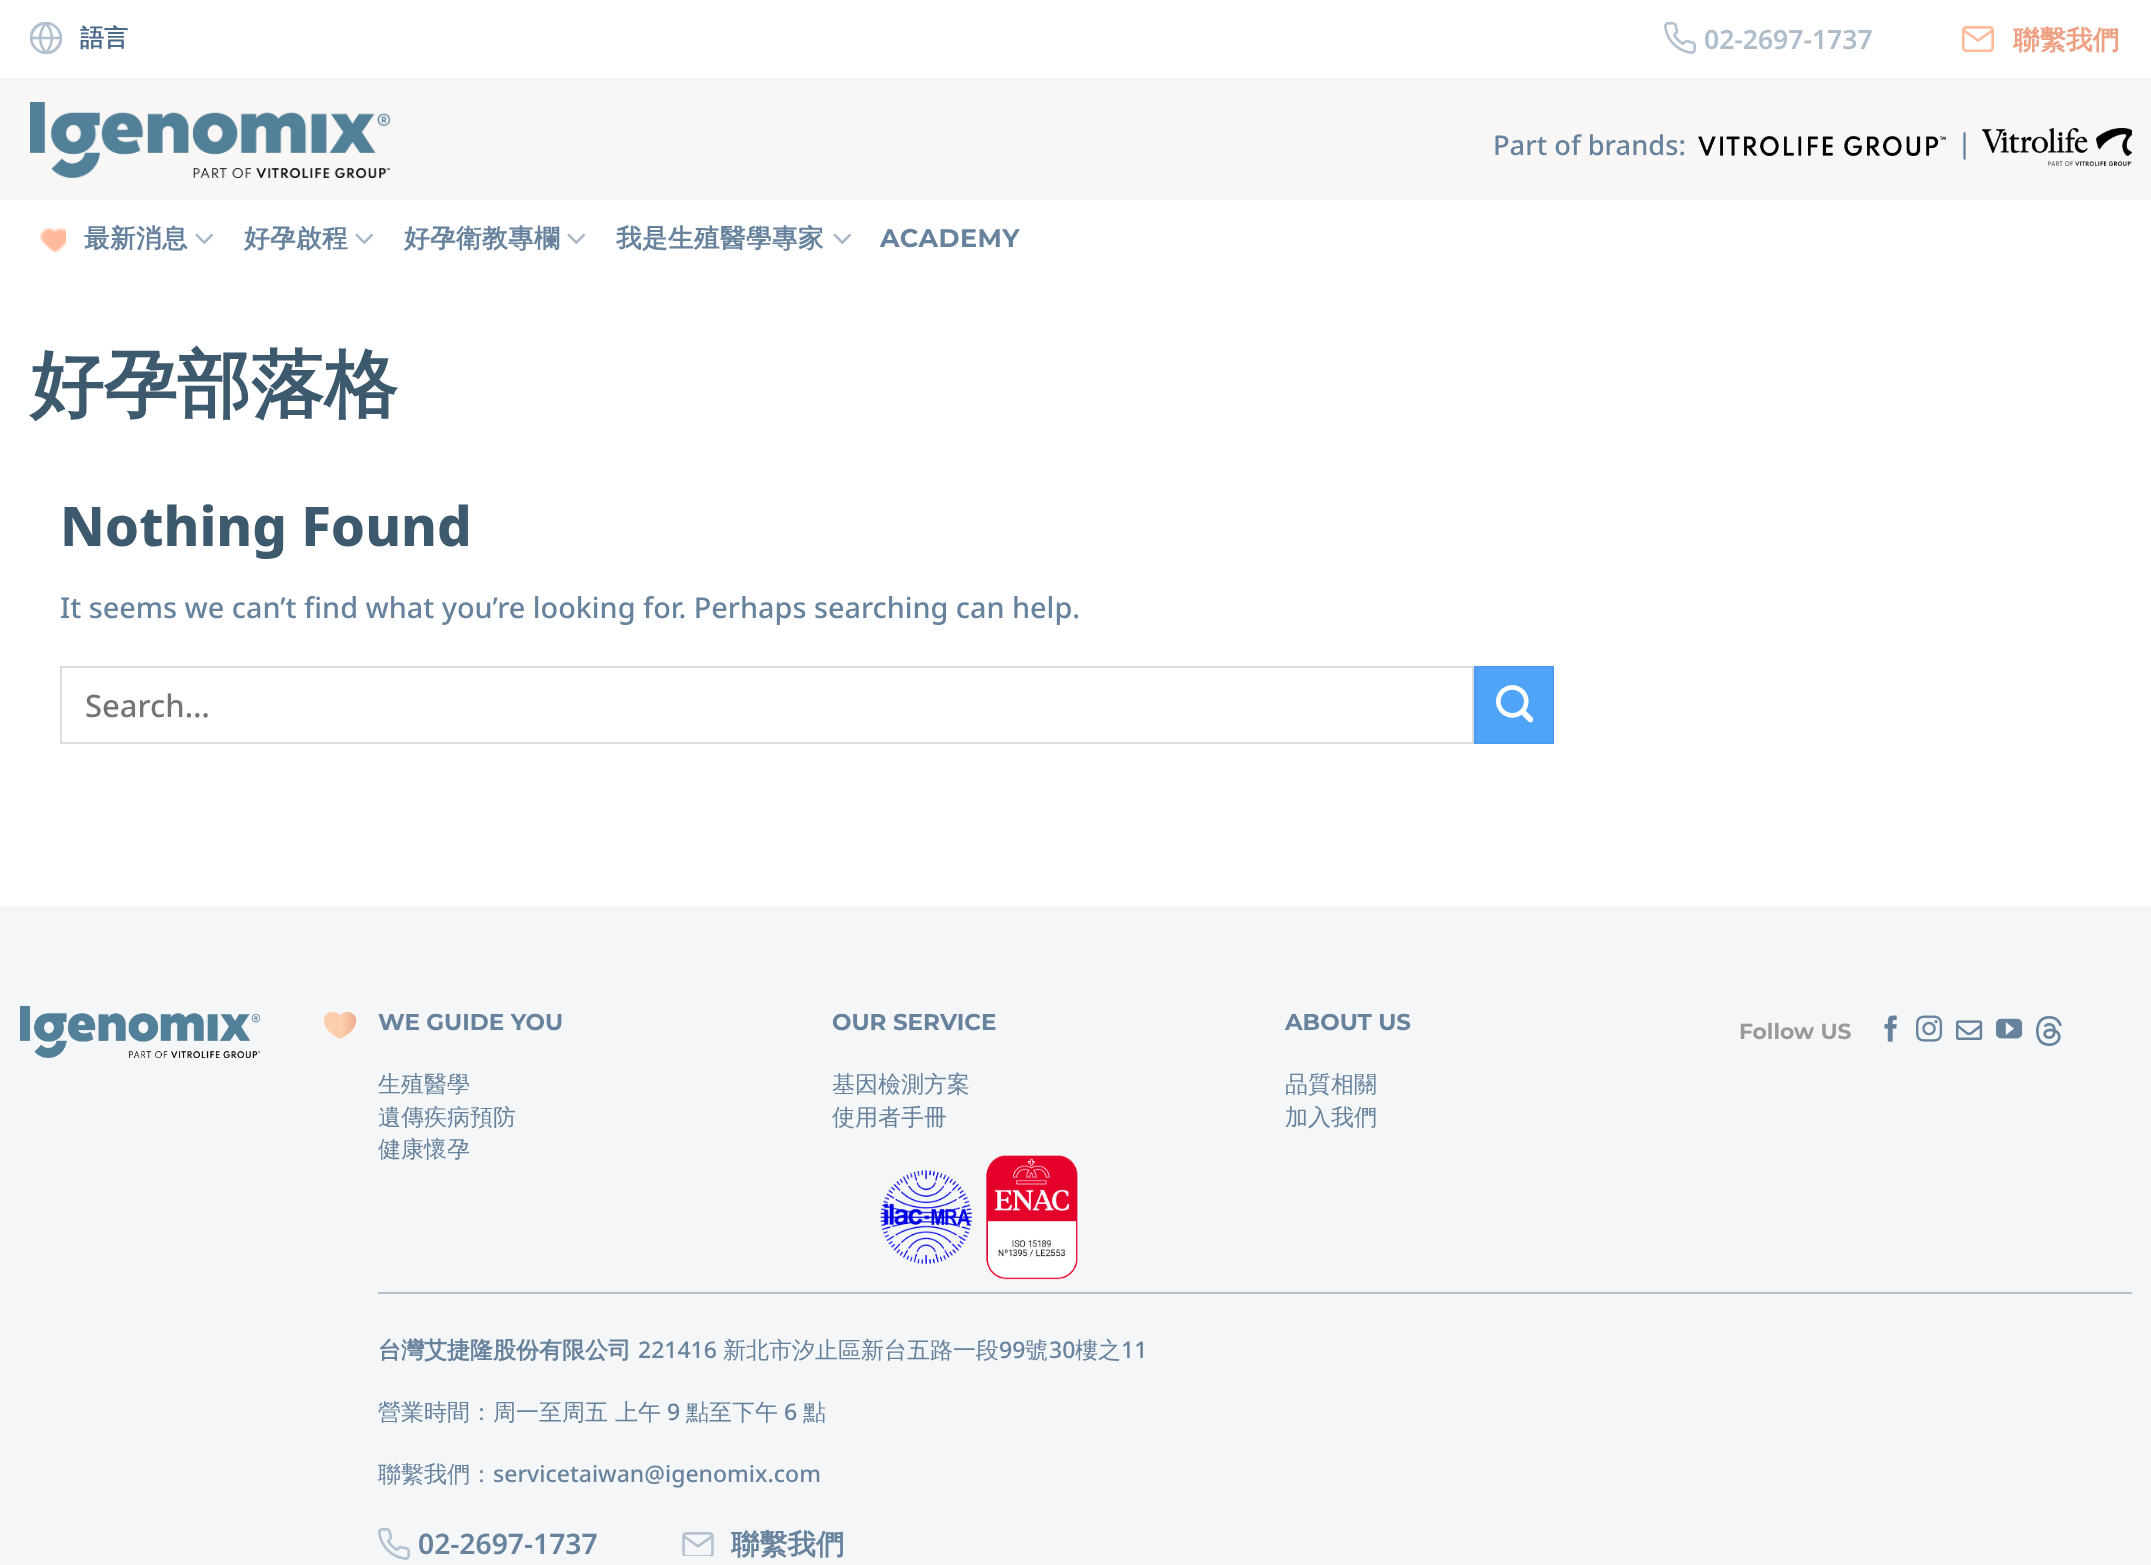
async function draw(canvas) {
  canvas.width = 2151;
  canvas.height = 1565;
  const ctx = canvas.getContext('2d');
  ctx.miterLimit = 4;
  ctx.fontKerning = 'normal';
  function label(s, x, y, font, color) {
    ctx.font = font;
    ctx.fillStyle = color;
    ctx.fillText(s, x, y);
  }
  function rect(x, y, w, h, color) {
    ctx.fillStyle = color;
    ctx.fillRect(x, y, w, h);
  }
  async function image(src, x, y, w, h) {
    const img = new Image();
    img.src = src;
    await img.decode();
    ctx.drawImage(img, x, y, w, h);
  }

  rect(0, 0, 2151, 1565, '#fff');
  rect(0, 78, 2151, 2, '#f0f3f5');
  await image('assets/img1.png', 30, 22, 32, 32);
  label('語言', 80, 46, 'bold 24px WenQuanYi Zen Hei', '#4b6b8a');
  await image('assets/img2.png', 1664, 22, 32, 32);
  label('02-2697-1737', 1704, 49, '600 26.5px Noto Sans', '#afbdcb');
  await image('assets/img3.png', 1962, 26, 32, 26);
  label('聯繫我們', 2013, 49, 'bold 26.5px WenQuanYi Zen Hei', '#eea082');
  rect(0, 80, 2151, 120, '#f8f7f5');
  await image('assets/img4.png', 30, 102, 360, 76);
  label('Part of brands:', 1493, 155, '500 27.25px Noto Sans', '#66829c');
  await image('assets/img5.png', 1698, 136, 248, 20);
  label('|', 1957, 153, '500 27.25px Noto Sans', '#66829c');
  await image('assets/img6.png', 1982, 128, 150, 38);
  await image('assets/img7.png', 40, 228, 26, 24);
  ctx.letterSpacing = '0.5px';
  label('最新消息', 84, 247, 'bold 25.5px WenQuanYi Zen Hei', '#66829c');
  await image('assets/img8.png', 195, 233, 19, 11);
  label('好孕啟程', 244, 247, 'bold 25.5px WenQuanYi Zen Hei', '#66829c');
  await image('assets/img8.png', 355, 233, 19, 11);
  label('好孕衛教專欄', 404, 247, 'bold 25.5px WenQuanYi Zen Hei', '#66829c');
  await image('assets/img8.png', 567, 233, 19, 11);
  label('我是生殖醫學專家', 616, 247, 'bold 25.5px WenQuanYi Zen Hei', '#66829c');
  await image('assets/img8.png', 833, 233, 19, 11);
  label('ACADEMY', 880, 247, 'bold 25.5px Montserrat', '#66829c');
  ctx.letterSpacing = '0px';
  label('好孕部落格', 30, 410, 'bold 73.5px WenQuanYi Zen Hei', '#3d596d');
  label('Nothing Found', 60, 546, '800 54.5px Noto Sans', '#3d596d');
  label('It seems we can’t find what you’re looking for. Perhaps searching can help.', 60, 618, '500 28.8px Noto Sans', '#66829c');
  ctx.strokeStyle = '#ddd';
  ctx.lineWidth = 2;
  ctx.strokeRect(61, 667, 1412, 76);
  label('Search…', 85, 717, '500 31px Noto Sans', '#757575');
  ctx.fillStyle = '#4fa4f8';
  ctx.beginPath();
  ctx.rect(1475, 667, 78, 76);
  ctx.fill();
  ctx.strokeStyle = '#4b9cec';
  ctx.stroke();
  await image('assets/img9.png', 1496, 685, 38, 38);
  rect(0, 906, 2151, 659, '#f4f6f8');
  await image('assets/img10.png', 20, 1006, 240, 52);
  await image('assets/img11.png', 324, 1012, 32, 27);
  label('WE GUIDE YOU', 378, 1030, 'bold 23px Montserrat', '#66829c');
  label('生殖醫學', 378, 1092, '500 23px WenQuanYi Zen Hei', '#66829c');
  label('遺傳疾病預防', 378, 1125, '500 23px WenQuanYi Zen Hei', '#66829c');
  label('健康懷孕', 378, 1157, '500 23px WenQuanYi Zen Hei', '#66829c');
  label('OUR SERVICE', 832, 1030, 'bold 23px Montserrat', '#66829c');
  label('基因檢測方案', 832, 1092, '500 23px WenQuanYi Zen Hei', '#66829c');
  label('使用者手冊', 832, 1125, '500 23px WenQuanYi Zen Hei', '#66829c');
  await image('assets/img12.png', 880, 1155, 198, 125);
  label('ABOUT US', 1285, 1030, 'bold 23px Montserrat', '#66829c');
  label('品質相關', 1285, 1092, '500 23px WenQuanYi Zen Hei', '#66829c');
  label('加入我們', 1285, 1125, '500 23px WenQuanYi Zen Hei', '#66829c');
  label('Follow US', 1739, 1039, 'bold 21.75px Montserrat', '#999');
  await image('assets/img13.png', 1884, 1015, 13, 27);
  await image('assets/img14.png', 1916, 1015, 27, 27);
  await image('assets/img15.png', 1956, 1020, 27, 20);
  await image('assets/img16.png', 1996, 1018, 27, 21);
  await image('assets/img17.png', 2036, 1016, 26, 30);
  rect(378, 1292, 1754, 2, '#b3c1ce');
  label('台灣艾捷隆股份有限公司', 378, 1358, 'bold 23px WenQuanYi Zen Hei', '#66829c');
  label('221416', 638, 1358, '500 23px Noto Sans', '#66829c');
  label('新北市汐止區新台五路一段', 723, 1358, '500 23px WenQuanYi Zen Hei', '#66829c');
  label('99', 999, 1358, '500 23px Noto Sans', '#66829c');
  label('號', 1025, 1358, '500 23px WenQuanYi Zen Hei', '#66829c');
  label('30', 1049, 1358, '500 23px Noto Sans', '#66829c');
  label('樓之', 1075, 1358, '500 23px WenQuanYi Zen Hei', '#66829c');
  label('11', 1121, 1358, '500 23px Noto Sans', '#66829c');
  label('營業時間：周一至周五 上午', 378, 1420, '500 23px WenQuanYi Zen Hei', '#66829c');
  label('9', 667, 1420, '500 23px Noto Sans', '#66829c');
  label('點至下午', 686, 1420, '500 23px WenQuanYi Zen Hei', '#66829c');
  label('6', 784, 1420, '500 23px Noto Sans', '#66829c');
  label('點', 803, 1420, '500 23px WenQuanYi Zen Hei', '#66829c');
  label('聯繫我們：', 378, 1482, '500 23px WenQuanYi Zen Hei', '#66829c');
  label('servicetaiwan@igenomix.com', 493, 1482, '500 23px Noto Sans', '#66829c');
  await image('assets/img18.png', 378, 1528, 32, 32);
  label('02-2697-1737', 418, 1554, '600 28.25px Noto Sans', '#66829c');
  await image('assets/img19.png', 682, 1532, 32, 24);
  label('聯繫我們', 731, 1554, 'bold 28.25px WenQuanYi Zen Hei', '#66829c');
}

draw(document.querySelector('canvas'));
